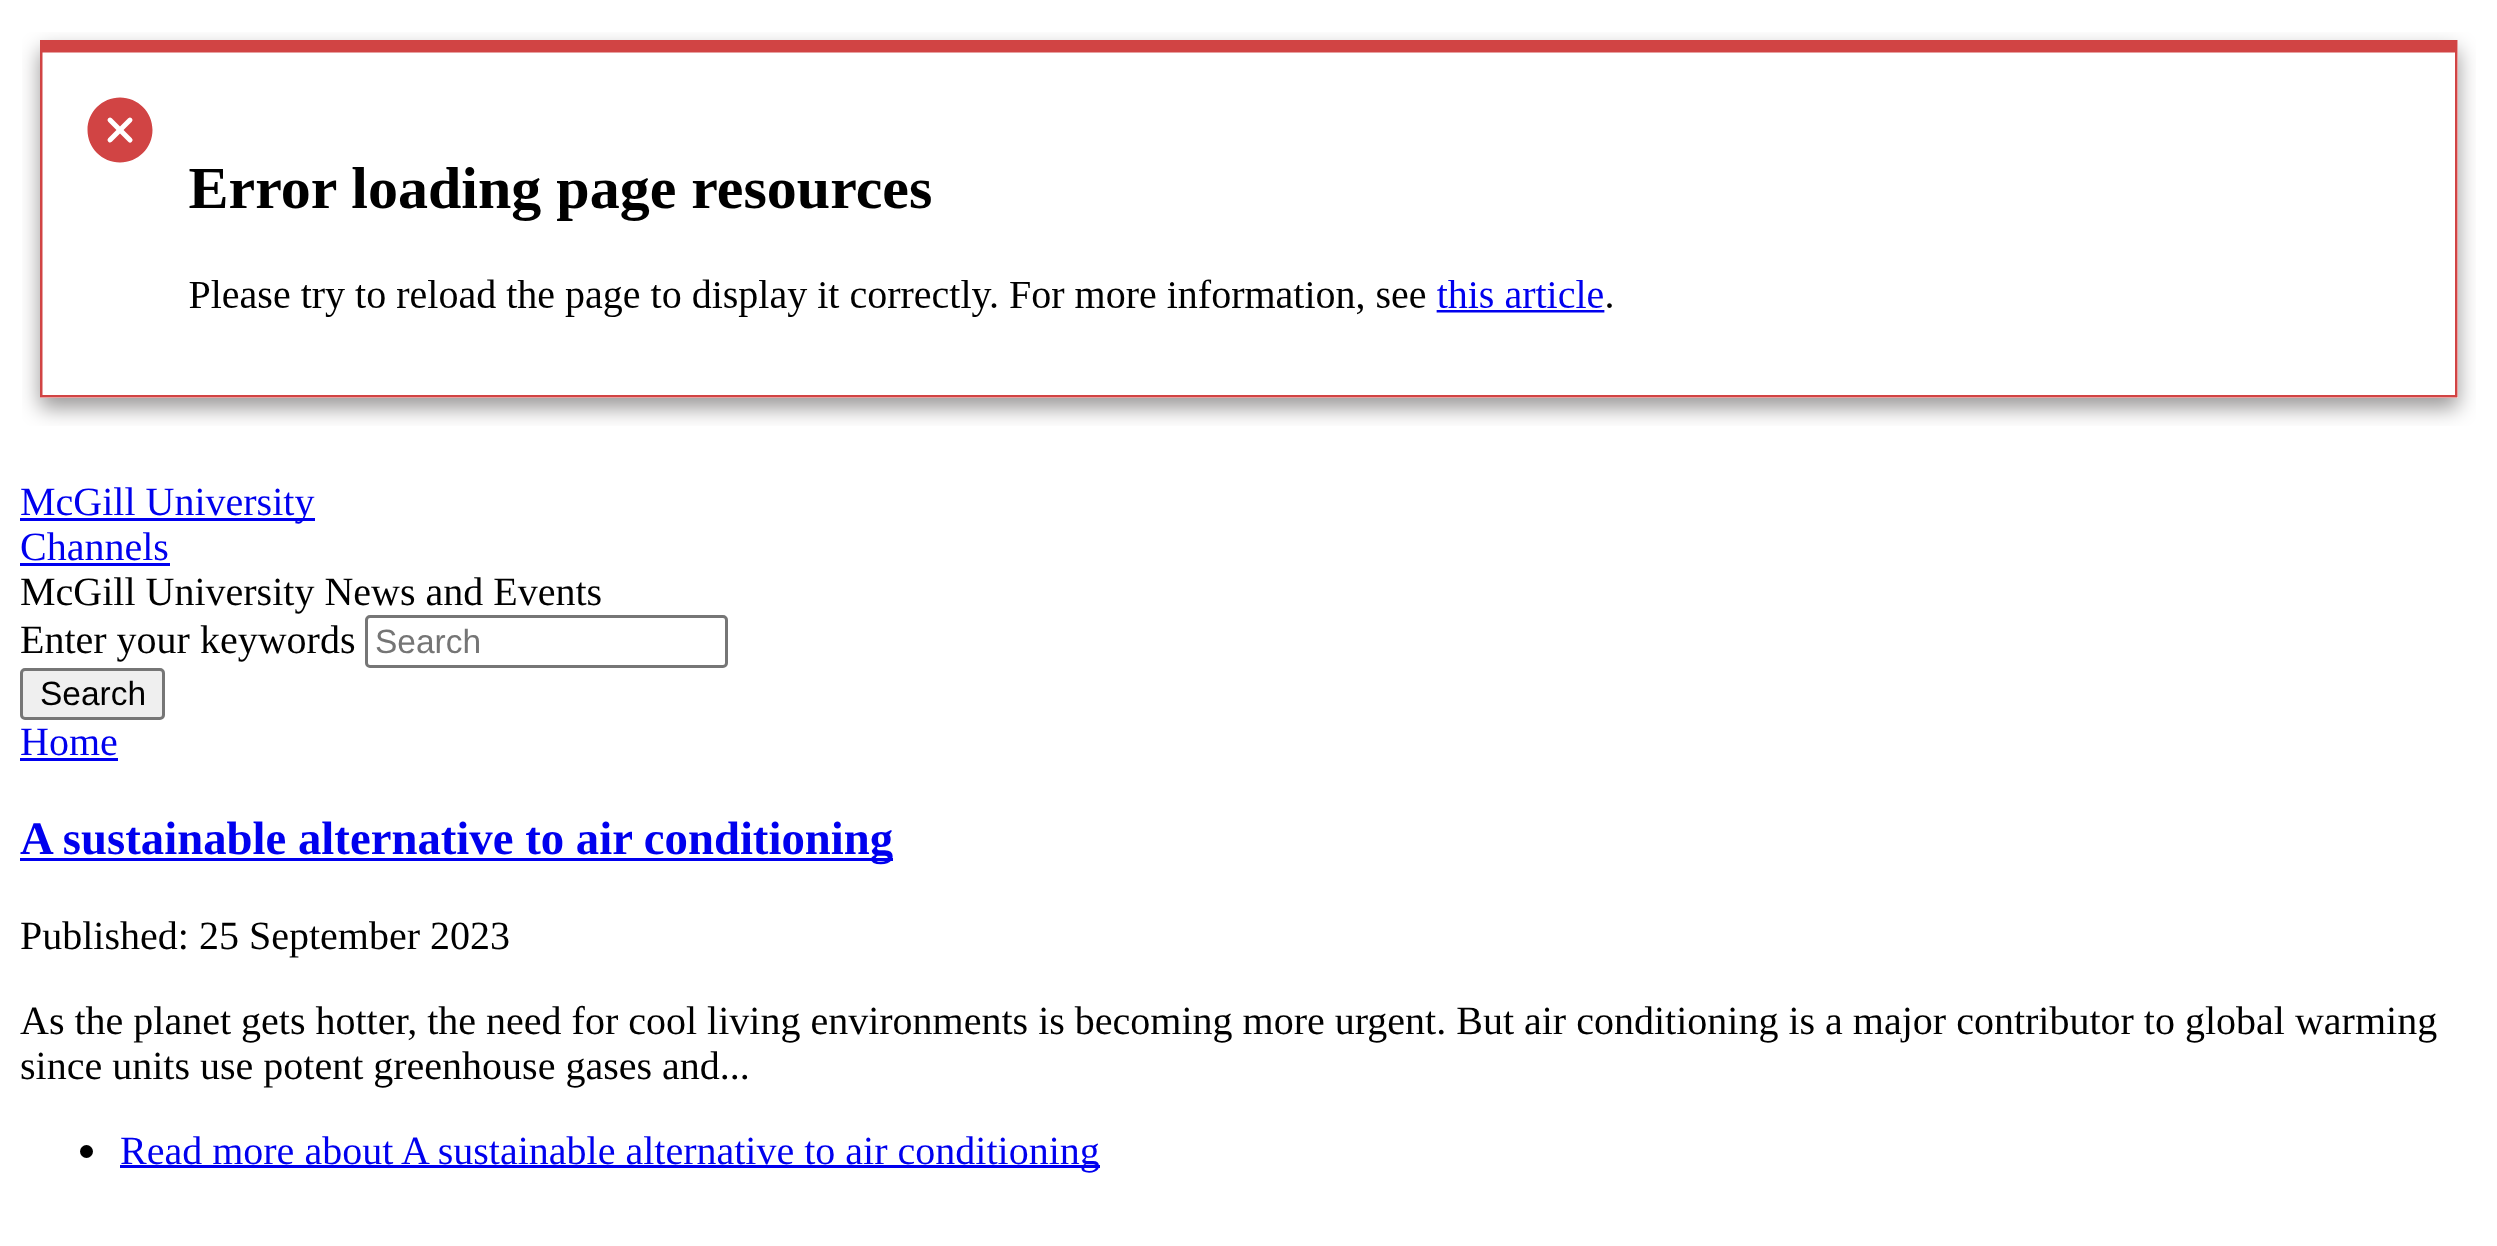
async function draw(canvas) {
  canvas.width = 2497;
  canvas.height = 1246;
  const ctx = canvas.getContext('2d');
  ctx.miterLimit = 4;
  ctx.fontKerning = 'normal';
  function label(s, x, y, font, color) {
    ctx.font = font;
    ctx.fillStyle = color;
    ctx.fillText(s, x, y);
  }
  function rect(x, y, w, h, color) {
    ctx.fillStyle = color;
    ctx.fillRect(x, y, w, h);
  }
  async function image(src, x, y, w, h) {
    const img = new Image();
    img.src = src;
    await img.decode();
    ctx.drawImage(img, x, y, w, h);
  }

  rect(0, 0, 2497, 1246, '#fff');
  await image('assets/img1.png', 22, 32, 2454, 394);
  rect(20, 518, 295, 3, '#00e');
  label('McGill University', 20, 515, '40px Liberation Serif', '#00e');
  label('Channels', 20, 560, '40px Liberation Serif', '#00e');
  rect(20, 563, 150, 3, '#00e');
  label('McGill University News and Events', 20, 605, '40px Liberation Serif', '#000');
  label('Enter your keywords', 20, 653, '40px Liberation Serif', '#000');
  ctx.beginPath();
  ctx.roundRect(366.5, 616.5, 360, 50, 3.5);
  ctx.strokeStyle = '#767676';
  ctx.lineWidth = 3;
  ctx.stroke();
  label('Search', 375, 653, '33.5px Liberation Sans', '#757575');
  ctx.fillStyle = '#efefef';
  ctx.beginPath();
  ctx.roundRect(21.5, 669.5, 142, 49, 3.5);
  ctx.fill();
  ctx.stroke();
  label('Search', 40, 705, '33.5px Liberation Sans', '#000');
  label('Home', 20, 755, '40px Liberation Serif', '#00e');
  rect(20, 758, 98, 3, '#00e');
  rect(20, 858, 873, 3, '#00e');
  label('A sustainable alternative to air conditioning', 20, 854, 'bold 46.75px Liberation Serif', '#00e');
  label('Published: 25 September 2023', 20, 949, '40px Liberation Serif', '#000');
  label('As the planet gets hotter, the need for cool living environments is becoming more urgent. But air conditioning is a major contributor to global warming', 20, 1034, '40px Liberation Serif', '#000');
  label('since units use potent greenhouse gases and...', 20, 1079, '40px Liberation Serif', '#000');
  ctx.beginPath();
  ctx.arc(86.5, 1151.5, 6.5, 0, 2 * Math.PI);
  ctx.fill();
  rect(120, 1165, 980, 3, '#00e');
  label('Read more about A sustainable alternative to air conditioning', 120, 1164, '40px Liberation Serif', '#00e');
}

draw(document.querySelector('canvas'));
